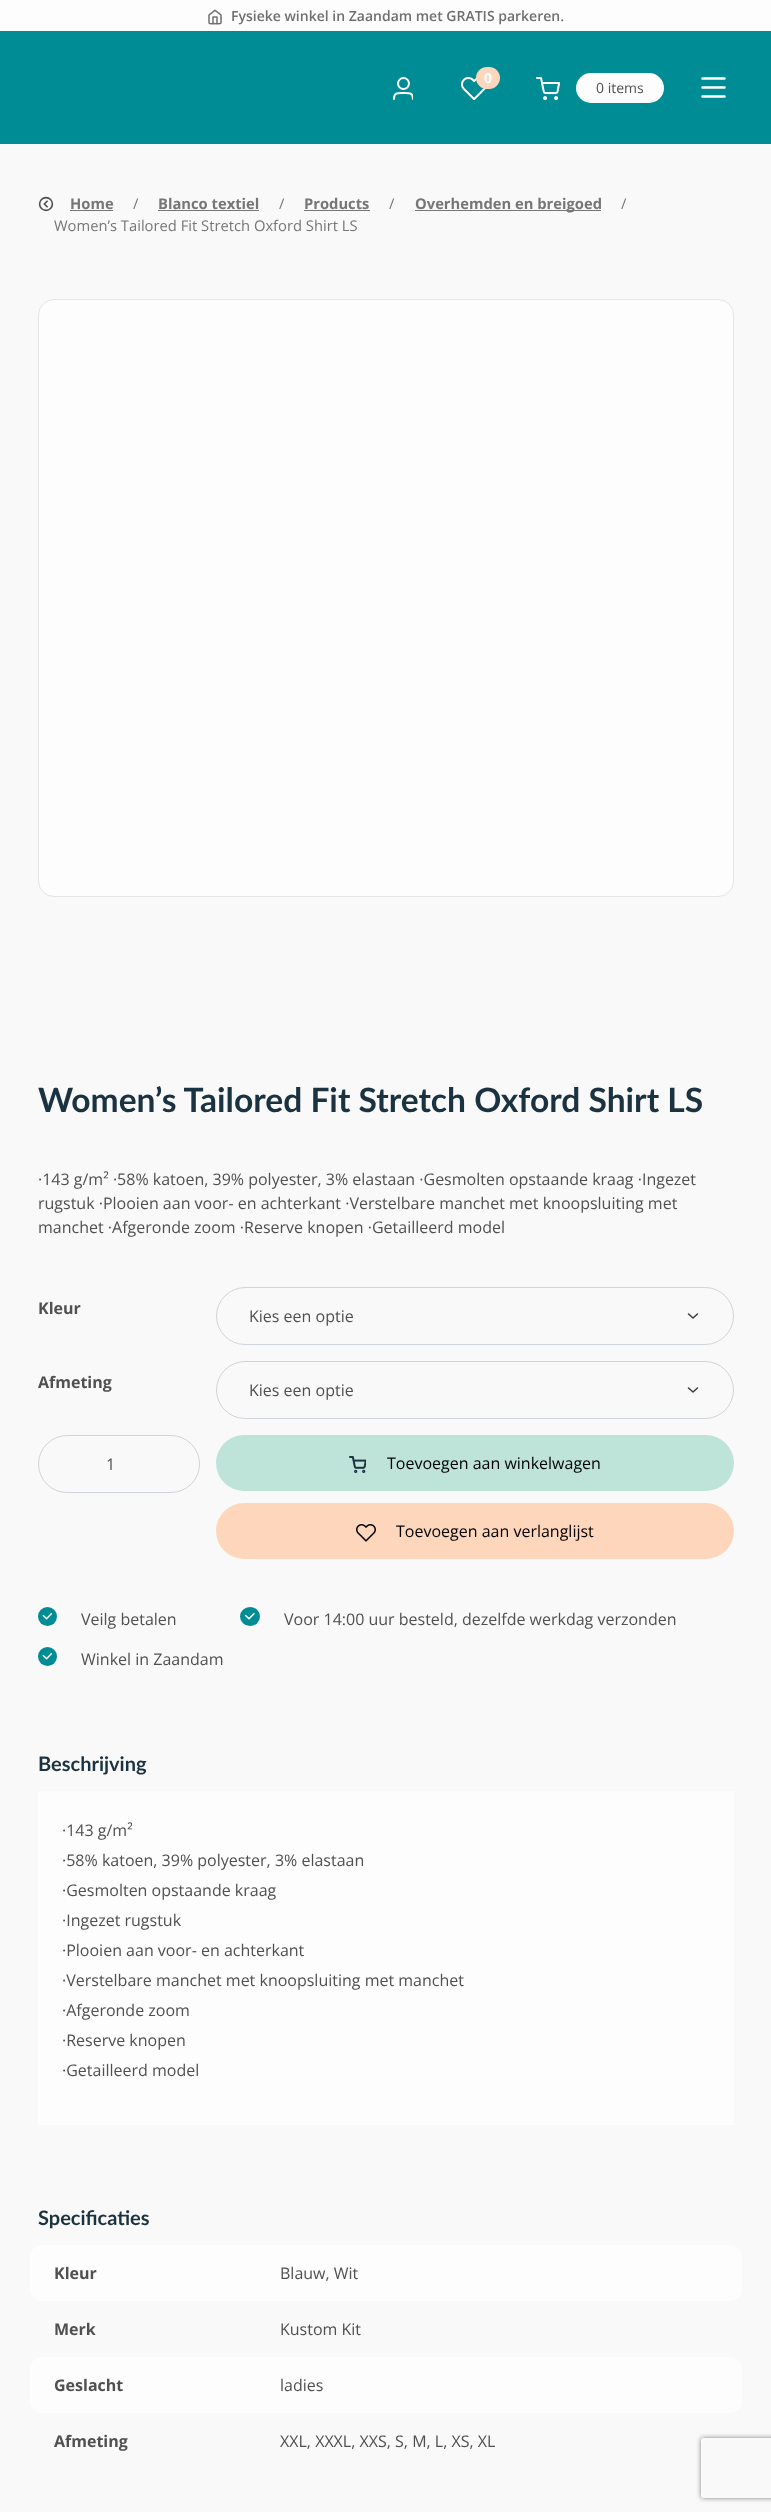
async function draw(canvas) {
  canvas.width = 771;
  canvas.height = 2512;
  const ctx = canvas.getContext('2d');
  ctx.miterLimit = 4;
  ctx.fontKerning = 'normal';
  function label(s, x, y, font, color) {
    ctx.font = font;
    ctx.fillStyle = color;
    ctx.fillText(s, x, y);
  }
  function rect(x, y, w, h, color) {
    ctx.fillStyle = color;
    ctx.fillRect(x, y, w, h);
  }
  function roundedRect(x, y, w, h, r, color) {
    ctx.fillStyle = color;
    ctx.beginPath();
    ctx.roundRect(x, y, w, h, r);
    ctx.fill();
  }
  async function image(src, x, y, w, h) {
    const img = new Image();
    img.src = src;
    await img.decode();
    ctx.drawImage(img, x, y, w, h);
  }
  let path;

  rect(0, 0, 771, 2512, '#faf9f9');
  rect(0, 0, 771, 31, '#fdfdfd');
  await image('assets/img1.png', 208, 9, 14, 16);
  label('Fysieke winkel in Zaandam met GRATIS parkeren.', 231, 21, '600 14px Open Sans', '#6f6f6f');
  rect(0, 31, 771, 113, '#008c95');
  ctx.beginPath();
  ctx.arc(403.5, 83.5, 5.5, 0, 2 * Math.PI);
  ctx.strokeStyle = '#fff';
  ctx.lineWidth = 2;
  ctx.stroke();
  ctx.save();
  ctx.beginPath();
  ctx.rect(393, 77, 20, 23);
  ctx.clip();
  path = new Path2D('M413 99C413 92.5 409 93 403.5 93C397.5 93 394 92.5 394 99');
  ctx.lineCap = 'round';
  ctx.lineJoin = 'round';
  ctx.stroke(path);
  ctx.restore();
  await image('assets/img2.png', 461, 77, 26, 23);
  roundedRect(476, 67, 24, 22, 11, '#fed6bc');
  label('0', 484, 83, 'bold 14px Open Sans', '#fdfdfd');
  await image('assets/img3.png', 536, 77, 24, 23);
  roundedRect(576, 73, 88, 30, 15, '#fdfdfd');
  label('0 items', 596, 93, '14px Open Sans', '#505050');
  path = new Path2D('M702.5 78.5H724.5M702.5 87.5H724.5M702.5 96.5H724.5');
  ctx.lineWidth = 2.6;
  ctx.lineCap = 'round';
  ctx.stroke(path);
  await image('assets/img4.png', 38, 196, 16, 16);
  label('Home', 70, 209, 'bold 14.75px Open Sans', '#767676');
  rect(70, 210, 43, 1, '#767676');
  label('/', 133, 209, '14.75px Open Sans', '#767676');
  label('Blanco textiel', 158, 209, 'bold 14.75px Open Sans', '#767676');
  rect(158, 210, 101, 1, '#767676');
  label('/', 279, 209, '14.75px Open Sans', '#767676');
  label('Products', 304, 209, 'bold 14.75px Open Sans', '#767676');
  rect(304, 210, 66, 1, '#767676');
  label('/', 389, 209, '14.75px Open Sans', '#767676');
  rect(415, 210, 186, 1, '#767676');
  label('Overhemden en breigoed', 415, 209, 'bold 14.75px Open Sans', '#767676');
  label('/', 621, 209, '14.75px Open Sans', '#767676');
  label('Women’s Tailored Fit Stretch Oxford Shirt LS', 54, 231, '14.75px Open Sans', '#767676');
  ctx.fillStyle = '#fdfdfd';
  ctx.beginPath();
  ctx.roundRect(38.5, 299.5, 695, 597, 15.5);
  ctx.fill();
  ctx.strokeStyle = '#e5e5e5';
  ctx.lineWidth = 1;
  ctx.stroke();
  label('Women’s Tailored Fit Stretch Oxford Shirt LS', 38, 1112, 'bold 33.6px Lato', '#1b3241');
  label('·143 g/m² ·58% katoen, 39% polyester, 3% elastaan ·Gesmolten opstaande kraag ·Ingezet', 38, 1185, '16px Open Sans', '#505050');
  label('rugstuk ·Plooien aan voor- en achterkant ·Verstelbare manchet met knoopsluiting met', 38, 1209, '16px Open Sans', '#505050');
  label('manchet ·Afgeronde zoom ·Reserve knopen ·Getailleerd model', 38, 1233, '16px Open Sans', '#505050');
  label('Kleur', 38, 1314, 'bold 16px Open Sans', '#505050');
  path = new Path2D('M688.5 1314L693 1318L697.5 1314');
  ctx.strokeStyle = '#343a40';
  ctx.lineWidth = 1.5;
  ctx.lineJoin = 'round';
  ctx.stroke(path);
  ctx.beginPath();
  ctx.roundRect(216.5, 1287.5, 517, 57, 28.5);
  ctx.strokeStyle = '#ced4da';
  ctx.lineWidth = 1;
  ctx.lineJoin = 'miter';
  ctx.stroke();
  label('Kies een optie', 249, 1322, '16px Open Sans', '#505050');
  label('Afmeting', 38, 1388, 'bold 16px Open Sans', '#505050');
  path = new Path2D('M688.5 1388L693 1392L697.5 1388');
  ctx.strokeStyle = '#343a40';
  ctx.lineWidth = 1.5;
  ctx.lineJoin = 'round';
  ctx.stroke(path);
  ctx.beginPath();
  ctx.roundRect(216.5, 1361.5, 517, 57, 28.5);
  ctx.strokeStyle = '#ced4da';
  ctx.lineWidth = 1;
  ctx.lineJoin = 'miter';
  ctx.stroke();
  label('Kies een optie', 249, 1396, '16px Open Sans', '#505050');
  ctx.beginPath();
  ctx.roundRect(38.5, 1435.5, 161, 57, 28.5);
  ctx.stroke();
  label('1', 106, 1470, '16px Open Sans', '#505050');
  roundedRect(216, 1435, 518, 56, 28, '#bee3d8');
  await image('assets/img5.png', 349, 1456, 17, 17);
  label('Toevoegen aan winkelwagen', 387, 1469, '16px Open Sans', '#000');
  roundedRect(216, 1503, 518, 56, 28, '#fed6bc');
  await image('assets/img6.png', 356, 1524, 20, 18);
  label('Toevoegen aan verlanglijst', 396, 1537, '16px Open Sans', '#000');
  await image('assets/img7.png', 38, 1607, 19, 19);
  label('Veilg betalen', 81, 1625, '16px Open Sans', '#505050');
  await image('assets/img8.png', 240, 1607, 20, 19);
  label('Voor 14:00 uur besteld, dezelfde werkdag verzonden', 284, 1625, '16px Open Sans', '#505050');
  await image('assets/img7.png', 38, 1647, 19, 19);
  label('Winkel in Zaandam', 81, 1665, '16px Open Sans', '#505050');
  label('Beschrijving', 38, 1771, 'bold 20px Lato', '#1b3241');
  rect(38, 1791, 696, 334, '#fdfdfd');
  label('·143 g/m²', 62, 1836, '16px Open Sans', '#505050');
  label('·58% katoen, 39% polyester, 3% elastaan', 62, 1866, '16px Open Sans', '#505050');
  label('·Gesmolten opstaande kraag', 62, 1896, '16px Open Sans', '#505050');
  label('·Ingezet rugstuk', 62, 1926, '16px Open Sans', '#505050');
  label('·Plooien aan voor- en achterkant', 62, 1956, '16px Open Sans', '#505050');
  label('·Verstelbare manchet met knoopsluiting met manchet', 62, 1986, '16px Open Sans', '#505050');
  label('·Afgeronde zoom', 62, 2016, '16px Open Sans', '#505050');
  label('·Reserve knopen', 62, 2046, '16px Open Sans', '#505050');
  label('·Getailleerd model', 62, 2076, '16px Open Sans', '#505050');
  label('Specificaties', 38, 2225, 'bold 20px Lato', '#1b3241');
  roundedRect(30, 2245, 712, 56, 12, '#fdfdfd');
  label('Kleur', 54, 2279, 'bold 16px Open Sans', '#505050');
  label('Blauw, Wit', 280, 2279, '16px Open Sans', '#505050');
  label('Merk', 54, 2335, 'bold 16px Open Sans', '#505050');
  label('Kustom Kit', 280, 2335, '16px Open Sans', '#505050');
  roundedRect(30, 2357, 712, 56, 12, '#fdfdfd');
  label('Geslacht', 54, 2391, 'bold 16px Open Sans', '#505050');
  label('ladies', 280, 2391, '16px Open Sans', '#505050');
  label('Afmeting', 54, 2447, 'bold 16px Open Sans', '#505050');
  label('XXL, XXXL, XXS, S, M, L, XS, XL', 280, 2447, '16px Open Sans', '#505050');
  ctx.save();
  path = new Path2D('M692 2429H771V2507H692ZM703 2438H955C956 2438 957 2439 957 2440V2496C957 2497 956 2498 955 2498H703C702 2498 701 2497 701 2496V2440C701 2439 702 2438 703 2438Z');
  ctx.clip(path, 'evenodd');
  ctx.fillStyle = '#808080';
  ctx.filter = 'blur(2.5px)';
  ctx.beginPath();
  ctx.roundRect(701, 2438, 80, 60, 2);
  ctx.fill();
  ctx.filter = 'none';
  ctx.restore();
}

draw(document.querySelector('canvas'));
